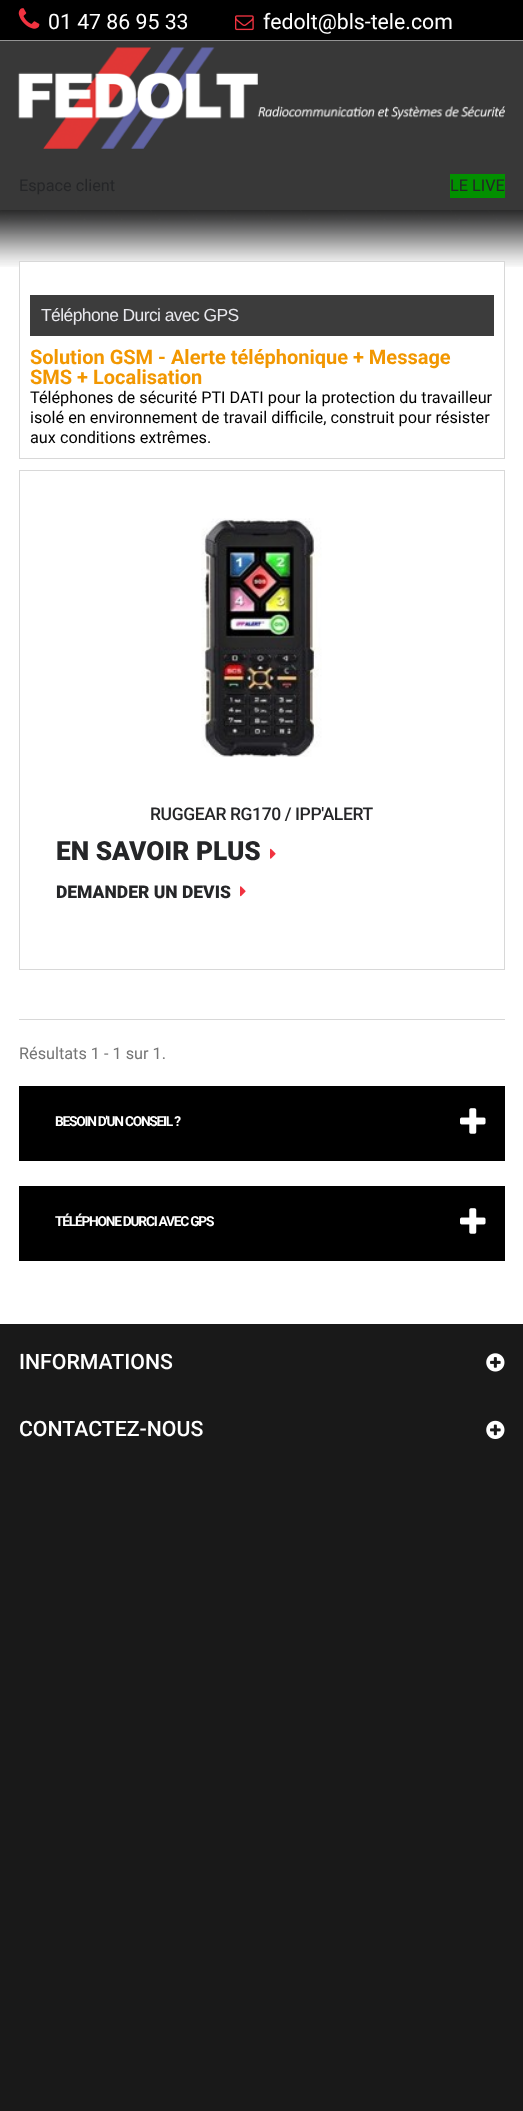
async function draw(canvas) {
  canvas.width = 523;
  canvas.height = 2111;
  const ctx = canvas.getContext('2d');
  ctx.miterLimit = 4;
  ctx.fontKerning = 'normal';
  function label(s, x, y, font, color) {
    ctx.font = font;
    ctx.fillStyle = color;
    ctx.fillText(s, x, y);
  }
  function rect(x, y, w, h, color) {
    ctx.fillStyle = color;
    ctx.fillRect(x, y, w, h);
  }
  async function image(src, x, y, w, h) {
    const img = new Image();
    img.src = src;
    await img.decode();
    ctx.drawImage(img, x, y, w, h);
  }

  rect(0, 0, 523, 2111, '#191919');
  rect(0, 0, 523, 40, '#000');
  rect(0, 40, 523, 1, '#949494');
  await image('assets/img1.png', 18, 8, 22, 21);
  label('01 47 86 95 33', 48, 29, '21.25px Roboto', '#fff');
  await image('assets/img2.png', 235, 15, 19, 16);
  label('fedolt@bls-tele.com', 263, 29, '21.25px Roboto', '#fff');
  rect(0, 41, 523, 169, '#383838');
  await image('assets/img3.png', 18, 47, 487, 102);
  label('Espace client', 19, 191, '16.25px Roboto', '#252628');
  rect(450, 174, 55, 24, '#029000');
  label('LE LIVE', 450, 191, '16.25px Roboto', '#252628');
  rect(0, 210, 523, 1114, '#fff');
  await image('assets/img4.png', 0, 210, 523, 57);
  rect(20, 262, 484, 5, '#fff');
  ctx.strokeStyle = '#d8d8d8';
  ctx.strokeRect(19.5, 261.5, 485, 197);
  rect(30, 295, 464, 41, '#3c3c3c');
  ctx.letterSpacing = '-0.6px';
  label('Téléphone Durci avec GPS', 41, 321, '17.5px Liberation Sans', '#e8e8ed');
  ctx.letterSpacing = '0px';
  label('Solution GSM - Alerte téléphonique + Message', 30, 364, 'bold 20px Roboto', '#f29701');
  label('SMS + Localisation', 30, 384, 'bold 20px Roboto', '#f29701');
  label('Téléphones de sécurité PTI DATI pour la protection du travailleur', 30, 403, '16.25px Roboto', '#000');
  label('isolé en environnement de travail difficile, construit pour résister', 30, 423, '16.25px Roboto', '#000');
  label('aux conditions extrêmes.', 30, 443, '16.25px Roboto', '#000');
  ctx.strokeRect(19.5, 470.5, 485, 499);
  await image('assets/img5.png', 201, 518, 121, 239);
  ctx.letterSpacing = '-0.4px';
  label('RUGGEAR RG170 / IPP\'ALERT', 150, 820, '500 17.5px Roboto', '#252628');
  ctx.letterSpacing = '0px';
  label('EN SAVOIR PLUS', 56, 860, '900 26.25px Roboto', '#252628');
  await image('assets/img6.png', 270, 848, 6, 11);
  label('DEMANDER UN DEVIS', 56, 898, '900 17.5px Roboto', '#252628');
  await image('assets/img7.png', 240, 886, 6, 11);
  rect(19, 1019, 486, 1, '#d8d8d8');
  label('Résultats 1 - 1 sur 1.', 19, 1059, '16.25px Roboto', '#757575');
  rect(19, 1086, 486, 75, '#000');
  ctx.letterSpacing = '-1.25px';
  label('BESOIN D\'UN CONSEIL ?', 55, 1126, 'bold 13.75px Roboto', '#fff');
  await image('assets/img8.png', 460, 1108, 26, 26);
  rect(19, 1186, 486, 75, '#000');
  label('TÉLÉPHONE DURCI AVEC GPS', 55, 1226, 'bold 13.75px Roboto', '#fff');
  await image('assets/img8.png', 460, 1208, 26, 26);
  ctx.letterSpacing = '0px';
  label('INFORMATIONS', 19, 1369, '500 21.25px Roboto', '#fff');
  await image('assets/img9.png', 486, 1353, 19, 19);
  label('CONTACTEZ-NOUS', 19, 1436, '500 21.25px Roboto', '#fff');
  await image('assets/img10.png', 486, 1420, 19, 19);
}

draw(document.querySelector('canvas'));
